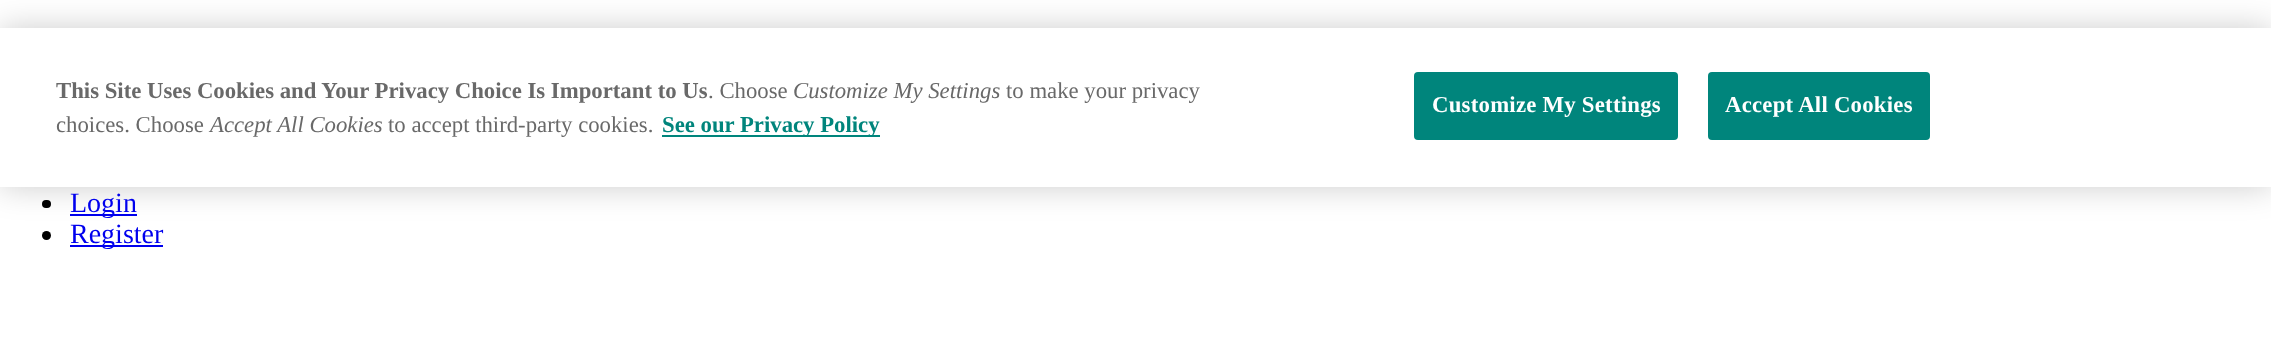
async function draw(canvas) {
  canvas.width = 2271;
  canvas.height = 345;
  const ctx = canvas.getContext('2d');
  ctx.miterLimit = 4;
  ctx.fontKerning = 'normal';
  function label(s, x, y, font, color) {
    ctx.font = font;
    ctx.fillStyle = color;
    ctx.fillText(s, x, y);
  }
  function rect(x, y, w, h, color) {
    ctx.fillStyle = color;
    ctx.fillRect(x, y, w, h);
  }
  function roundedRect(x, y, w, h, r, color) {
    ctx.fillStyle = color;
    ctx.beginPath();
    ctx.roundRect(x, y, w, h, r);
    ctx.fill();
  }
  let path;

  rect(0, 0, 2271, 345, '#fff');
  roundedRect(42, 200, 9, 8, 4, '#000');
  rect(70, 214, 67, 2, '#00e');
  ctx.fillStyle = '#000';
  ctx.beginPath();
  ctx.arc(46.5, 235.5, 4.5, 0, 2 * Math.PI);
  ctx.fill();
  ctx.save();
  path = new Path2D('M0 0H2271V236H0ZM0 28H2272V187H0Z');
  ctx.clip(path, 'evenodd');
  ctx.fillStyle = '#00000033';
  ctx.filter = 'blur(16px)';
  ctx.beginPath();
  ctx.rect(0, 28, 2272, 159);
  ctx.fill();
  ctx.filter = 'none';
  ctx.restore();
  label('This Site Uses Cookies and Your Privacy Choice Is Important to Us', 56, 98, 'bold 22.75px Liberation Serif', '#696969');
  label('. Choose', 708, 98, '22.75px Liberation Serif', '#696969');
  label('Customize My Settings', 793, 98, 'italic 22.75px Liberation Serif', '#696969');
  label('to make your privacy', 1006, 98, '22.75px Liberation Serif', '#696969');
  label('choices. Choose', 56, 132, '22.75px Liberation Serif', '#696969');
  label('Accept All Cookies', 210, 132, 'italic 22.75px Liberation Serif', '#696969');
  label('to accept third-party cookies.', 388, 132, '22.75px Liberation Serif', '#696969');
  rect(662, 135, 218, 2, '#00857c');
  label('See our Privacy Policy', 662, 132, 'bold 22.75px Liberation Serif', '#00857c');
  roundedRect(1414, 72, 264, 68, 4, '#00857c');
  ctx.letterSpacing = '0.25px';
  label('Customize My Settings', 1432, 112, 'bold 22.75px Liberation Serif', '#fff');
  roundedRect(1708, 72, 222, 68, 4, '#00857c');
  label('Accept All Cookies', 1725, 112, 'bold 22.75px Liberation Serif', '#fff');
  ctx.letterSpacing = '0px';
  label('Login', 70, 212, '28px Liberation Serif', '#00e');
  rect(70, 245, 93, 2, '#00e');
  label('Register', 70, 243, '28px Liberation Serif', '#00e');
}

draw(document.querySelector('canvas'));
